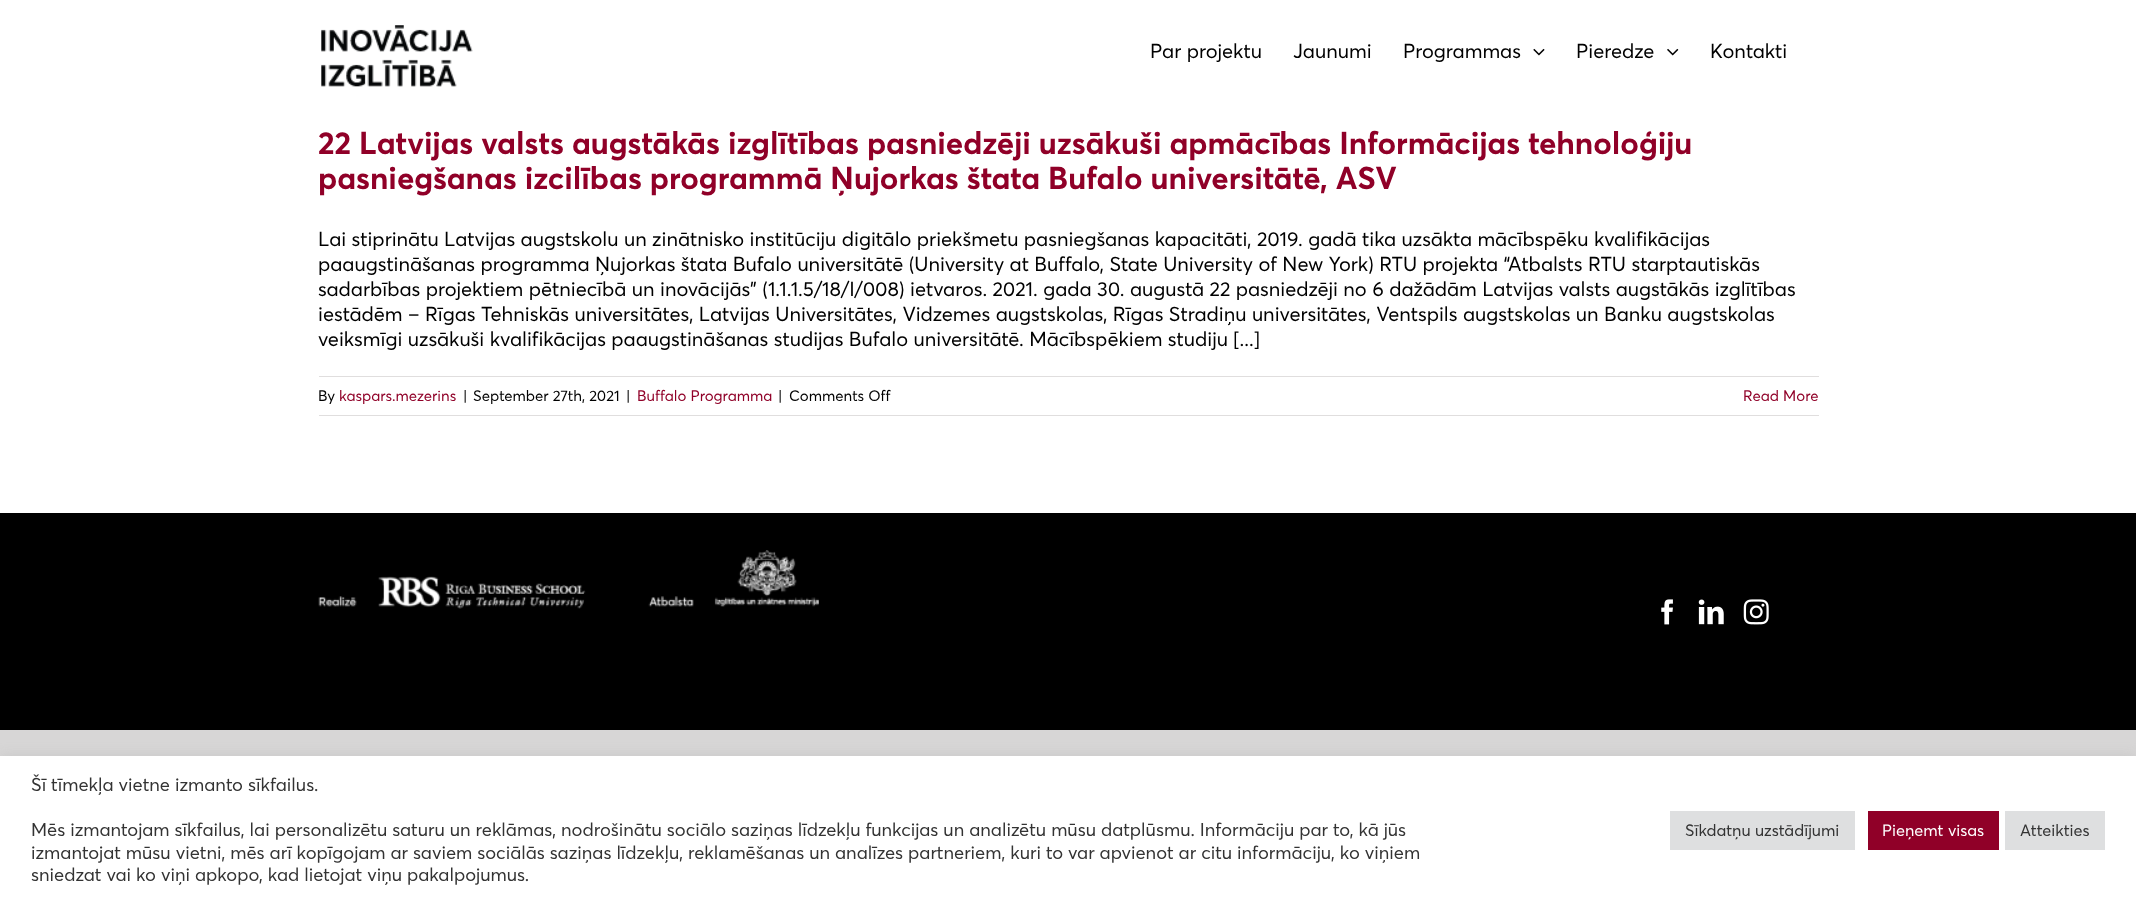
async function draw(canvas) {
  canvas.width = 2136;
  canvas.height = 903;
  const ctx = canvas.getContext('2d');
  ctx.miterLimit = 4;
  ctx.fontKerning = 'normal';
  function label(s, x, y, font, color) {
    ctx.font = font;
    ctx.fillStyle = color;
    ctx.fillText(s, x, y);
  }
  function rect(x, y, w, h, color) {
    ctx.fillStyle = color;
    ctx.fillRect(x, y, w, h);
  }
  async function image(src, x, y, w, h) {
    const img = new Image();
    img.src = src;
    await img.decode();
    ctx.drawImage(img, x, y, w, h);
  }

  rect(0, 0, 2136, 903, '#d7d6d6');
  rect(0, 0, 2136, 513, '#fff');
  await image('assets/img1.png', 321, 25, 152, 62);
  label('Par projektu', 1150, 58, '20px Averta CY', '#000');
  label('Jaunumi', 1293, 58, '20px Averta CY', '#000');
  label('Programmas', 1403, 58, '20px Averta CY', '#000');
  await image('assets/img2.png', 1533, 48, 12, 8);
  label('Pieredze', 1576, 58, '20px Averta CY', '#000');
  await image('assets/img3.png', 1667, 48, 12, 8);
  label('Kontakti', 1710, 58, '20px Averta CY', '#000');
  label('22 Latvijas valsts augstākās izglītības pasniedzēji uzsākuši apmācības Informācijas tehnoloģiju', 318, 154, 'bold 31.25px Averta CY', '#900028');
  label('pasniegšanas izcilības programmā Ņujorkas štata Bufalo universitātē, ASV', 318, 189, 'bold 31.25px Averta CY', '#900028');
  label('Lai stiprinātu Latvijas augstskolu un zinātnisko institūciju digitālo priekšmetu pasniegšanas kapacitāti, 2019. gadā tika uzsākta mācībspēku kvalifikācijas', 318, 246, '20px Averta CY', '#000');
  label('paaugstināšanas programma Ņujorkas štata Bufalo universitātē (University at Buffalo, State University of New York) RTU projekta “Atbalsts RTU starptautiskās', 318, 271, '20px Averta CY', '#000');
  label('sadarbības projektiem pētniecībā un inovācijās” (1.1.1.5/18/I/008) ietvaros. 2021. gada 30. augustā 22 pasniedzēji no 6 dažādām Latvijas valsts augstākās izglītības', 318, 296, '20px Averta CY', '#000');
  label('iestādēm – Rīgas Tehniskās universitātes, Latvijas Universitātes, Vidzemes augstskolas, Rīgas Stradiņu universitātes, Ventspils augstskolas un Banku augstskolas', 318, 321, '20px Averta CY', '#000');
  label('veiksmīgi uzsākuši kvalifikācijas paaugstināšanas studijas Bufalo universitātē. Mācībspēkiem studiju [...]', 318, 346, '20px Averta CY', '#000');
  rect(319, 376, 1500, 1, '#e0dede');
  rect(319, 415, 1500, 1, '#e0dede');
  label('By', 318, 401, '15px Averta CY', '#000');
  label('kaspars.mezerins', 339, 401, '15px Averta CY', '#900028');
  label('|', 463, 401, '15px Averta CY', '#000');
  label('September 27th, 2021', 473, 401, '15px Averta CY', '#000');
  label('|', 626, 401, '15px Averta CY', '#000');
  label('Buffalo Programma', 637, 401, '15px Averta CY', '#900028');
  label('|', 778, 401, '15px Averta CY', '#000');
  label('Comments Off', 789, 401, '15px Averta CY', '#000');
  label('Read More', 1743, 401, '15px Averta CY', '#900028');
  rect(0, 513, 2136, 217, '#000');
  await image('assets/img4.png', 318, 550, 501, 59);
  await image('assets/img5.png', 1661, 599, 12, 26);
  await image('assets/img6.png', 1698, 599, 26, 26);
  await image('assets/img7.png', 1743, 599, 26, 26);
  ctx.fillStyle = '#acabab4d';
  ctx.filter = 'blur(6px)';
  ctx.beginPath();
  ctx.rect(0, 755, 2136, 148);
  ctx.fill();
  ctx.filter = 'none';
  rect(0, 756, 2136, 147, '#fff');
  label('Šī tīmekļa vietne izmanto sīkfailus.', 31, 791, '18.33px Averta CY', '#333');
  label('Mēs izmantojam sīkfailus, lai personalizētu saturu un reklāmas, nodrošinātu sociālo saziņas līdzekļu funkcijas un analizētu mūsu datplūsmu. Informāciju par to, kā jūs', 31, 836, '18.33px Averta CY', '#333');
  label('izmantojat mūsu vietni, mēs arī kopīgojam ar saviem sociālās saziņas līdzekļu, reklamēšanas un analīzes partneriem, kuri to var apvienot ar citu informāciju, ko viņiem', 31, 859, '18.33px Averta CY', '#333');
  label('sniedzat vai ko viņi apkopo, kad lietojat viņu pakalpojumus.', 31, 881, '18.33px Averta CY', '#333');
  rect(1670, 811, 185, 39, '#dedfe0');
  label('Sīkdatņu uzstādījumi', 1685, 836, '16.25px Averta CY', '#333');
  rect(1868, 811, 131, 39, '#900028');
  label('Pieņemt visas', 1882, 836, '16.25px Averta CY', '#fff');
  rect(2005, 811, 100, 39, '#dedfe0');
  label('Atteikties', 2020, 836, '16.25px Averta CY', '#333');
}

draw(document.querySelector('canvas'));
